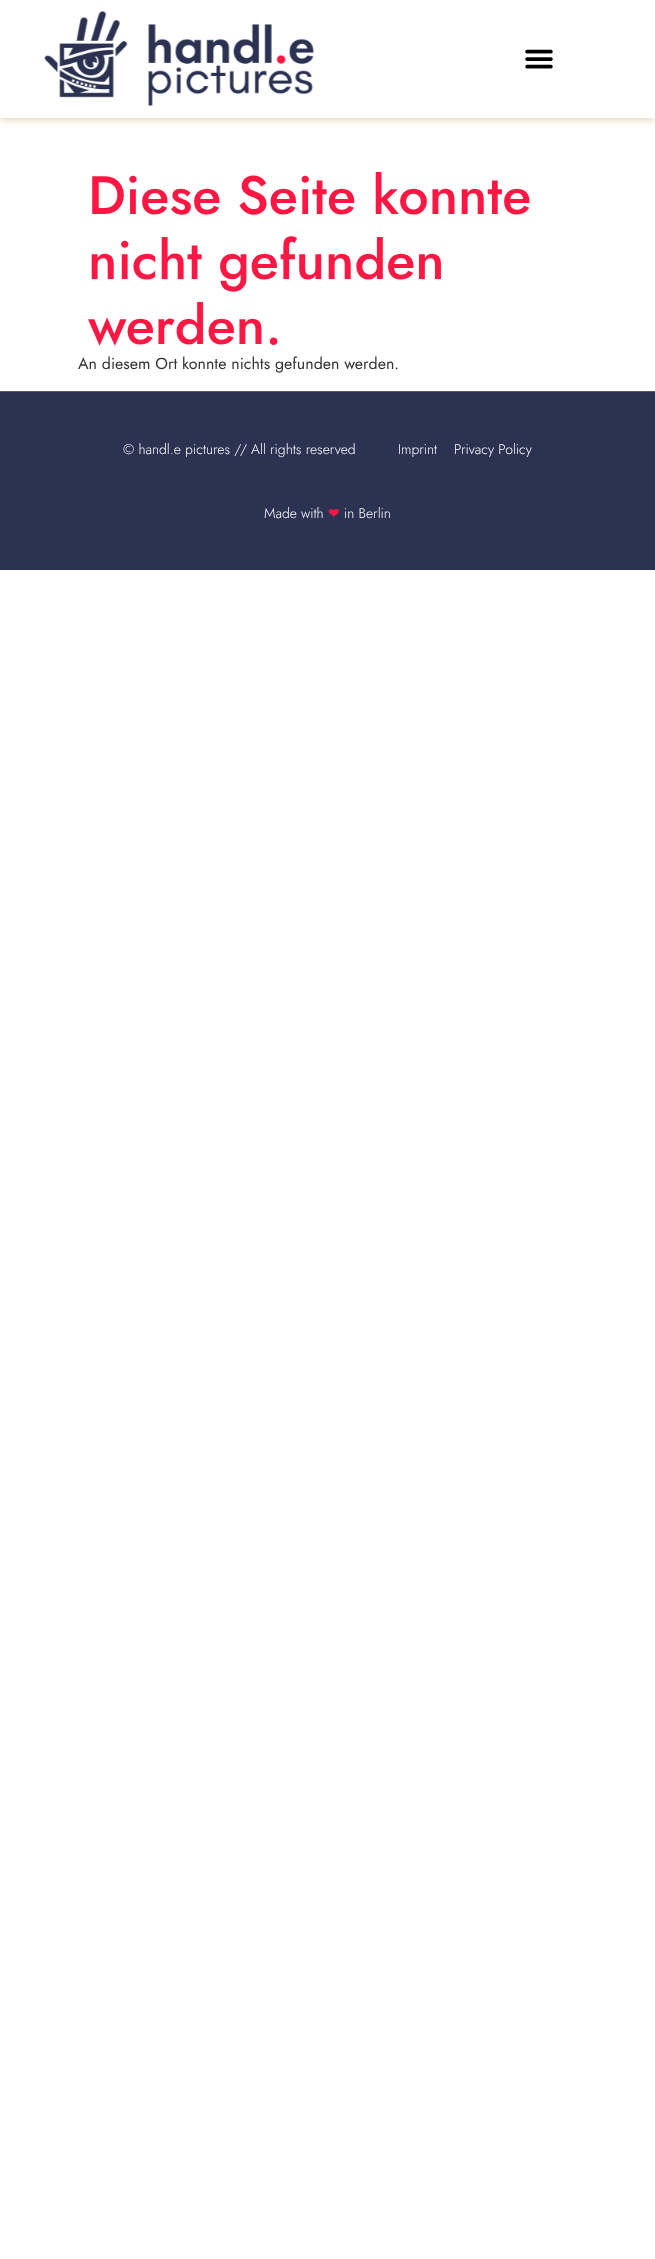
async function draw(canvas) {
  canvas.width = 655;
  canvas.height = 2259;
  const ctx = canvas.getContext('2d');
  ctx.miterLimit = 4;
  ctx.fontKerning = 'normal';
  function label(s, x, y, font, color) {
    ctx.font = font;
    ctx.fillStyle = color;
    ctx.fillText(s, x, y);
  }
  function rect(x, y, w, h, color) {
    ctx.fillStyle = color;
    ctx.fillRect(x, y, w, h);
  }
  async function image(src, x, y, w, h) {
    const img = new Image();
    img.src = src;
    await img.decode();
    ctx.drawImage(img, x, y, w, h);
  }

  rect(0, 0, 655, 2259, '#fff');
  ctx.save();
  ctx.beginPath();
  ctx.rect(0, 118, 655, 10);
  ctx.clip();
  ctx.fillStyle = '#c6b273c7';
  ctx.filter = 'blur(5px)';
  ctx.beginPath();
  ctx.rect(0, 0, 655, 118);
  ctx.fill();
  ctx.filter = 'none';
  ctx.restore();
  await image('assets/img1.png', 44, 11, 270, 95);
  await image('assets/img2.png', 525, 49, 28, 20);
  label('Diese Seite konnte', 88, 214, '500 54px Jost', '#ff1744');
  label('nicht gefunden', 88, 279, '500 54px Jost', '#ff1744');
  label('werden.', 88, 344, '500 54px Jost', '#ff1744');
  label('An diesem Ort konnte nichts gefunden werden.', 78, 369, '16px Jost', '#333');
  rect(0, 392, 655, 178, '#2b3252');
  rect(0, 391, 655, 1, '#535973');
  label('© handl.e pictures // All rights reserved', 123, 454, '300 14px Jost', '#fff');
  label('Imprint', 398, 454, '300 14px Jost', '#fff');
  label('Privacy Policy', 454, 454, '300 14px Jost', '#fff');
  label('Made with', 264, 518, '300 14px Jost', '#fff');
  label('❤', 328, 518, '14px DejaVu Sans', '#ff1744');
  label('in Berlin', 344, 518, '300 14px Jost', '#fff');
}

draw(document.querySelector('canvas'));
